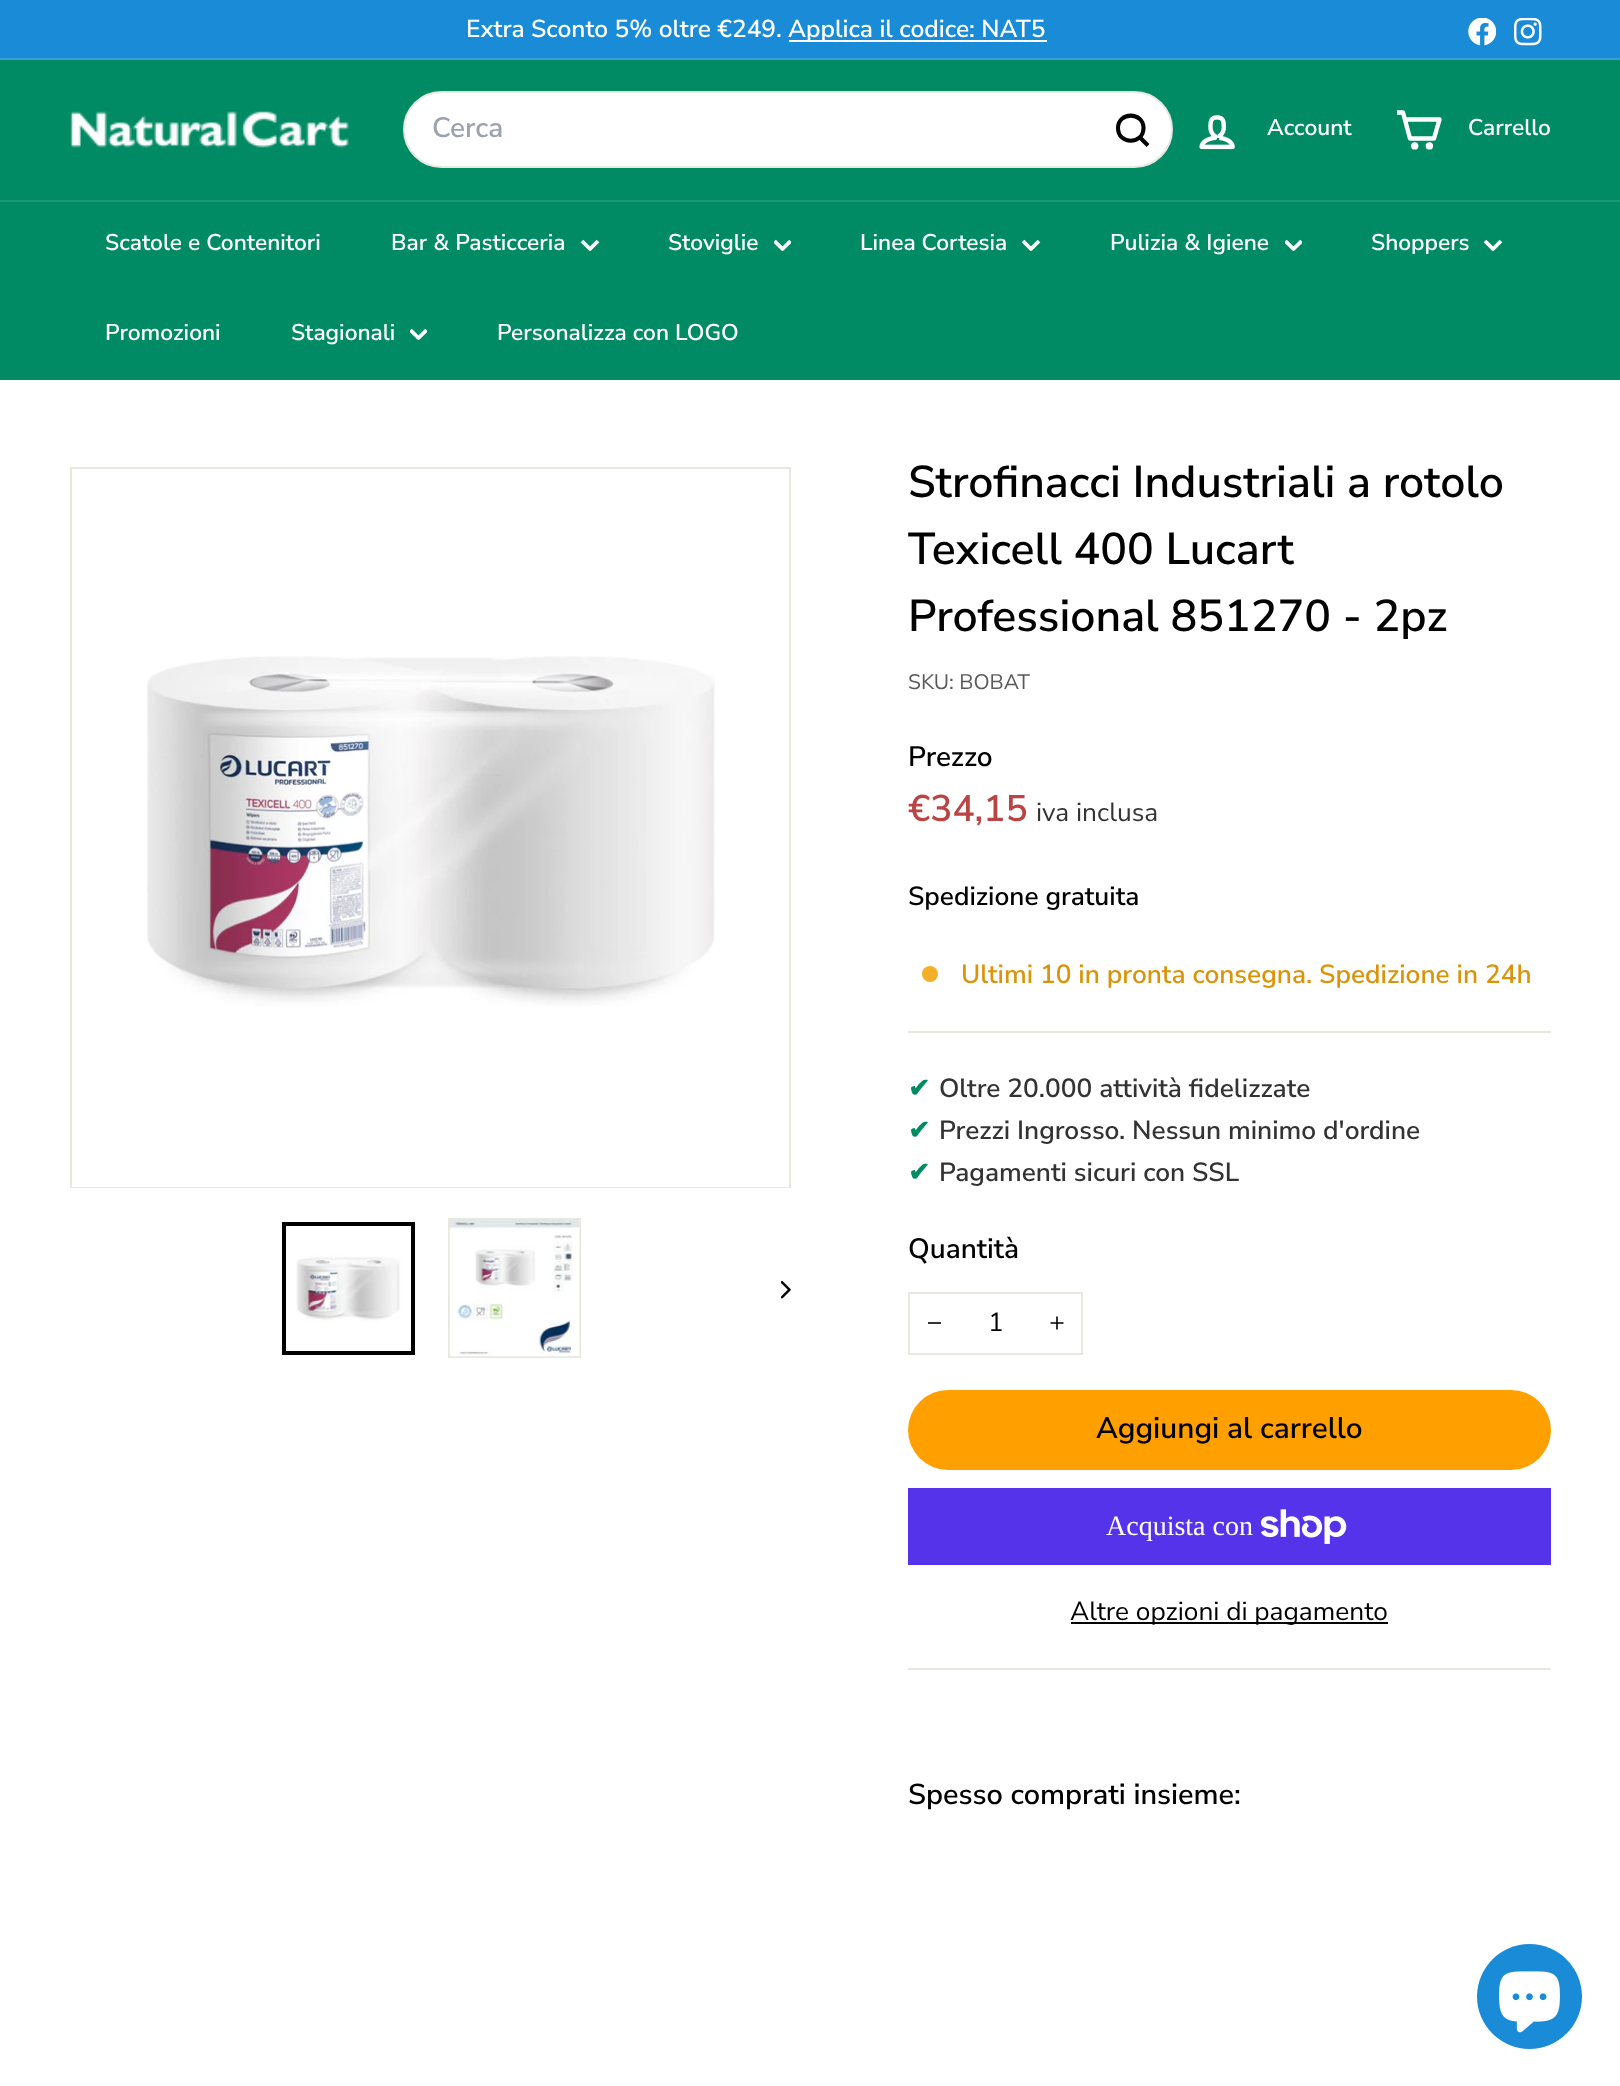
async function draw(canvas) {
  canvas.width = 1620;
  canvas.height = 2086;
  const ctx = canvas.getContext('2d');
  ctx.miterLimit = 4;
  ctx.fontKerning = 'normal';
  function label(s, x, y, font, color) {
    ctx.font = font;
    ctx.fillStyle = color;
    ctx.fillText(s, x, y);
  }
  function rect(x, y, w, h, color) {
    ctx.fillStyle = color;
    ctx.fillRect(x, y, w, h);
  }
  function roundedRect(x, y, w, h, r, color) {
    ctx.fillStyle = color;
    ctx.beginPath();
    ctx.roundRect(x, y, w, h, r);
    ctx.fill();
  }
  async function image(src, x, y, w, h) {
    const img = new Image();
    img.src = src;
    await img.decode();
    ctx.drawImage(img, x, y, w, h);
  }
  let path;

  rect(0, 0, 1620, 2086, '#fff');
  rect(0, 0, 1620, 58, '#1a8bd7');
  label('Extra Sconto 5% oltre €249.', 466, 37, '600 24.5px Nunito Sans', '#fff');
  rect(789, 40, 258, 2, '#fff');
  label('Applica il codice: NAT5', 788, 37, '600 24.5px Nunito Sans', '#fff');
  await image('assets/img1.png', 1468, 18, 28, 28);
  await image('assets/img2.png', 1514, 18, 28, 28);
  rect(0, 58, 1620, 2, '#3c9cdd');
  rect(0, 60, 1620, 140, '#008b64');
  await image('assets/img3.png', 70, 110, 279, 38);
  ctx.fillStyle = '#fff';
  ctx.beginPath();
  ctx.roundRect(404, 92, 768, 75, 37.5);
  ctx.fill();
  ctx.strokeStyle = '#e8e8e1';
  ctx.lineWidth = 2;
  ctx.stroke();
  label('Cerca', 432, 137, '600 28px Nunito Sans', '#9ca3af');
  path = new Path2D('M1143.5 128C1143.5 145 1118 145 1118 128C1118 111.5 1143.5 111.5 1143.5 128M1148 145.5L1140 137.5');
  ctx.strokeStyle = '#000';
  ctx.lineWidth = 4.1;
  ctx.lineJoin = 'round';
  ctx.stroke(path);
  await image('assets/img4.png', 1199, 115, 36, 35);
  label('Account', 1267, 135, '600 22.75px Nunito Sans', '#fff');
  path = new Path2D('M1405 119.5H1439.5L1434 138.5H1410L1403 112.5H1397');
  ctx.strokeStyle = '#fff';
  ctx.lineWidth = 4.4;
  ctx.stroke(path);
  ctx.beginPath();
  ctx.arc(1414.7, 145.9, 1.5, 0, 2 * Math.PI);
  ctx.fill();
  ctx.stroke();
  ctx.beginPath();
  ctx.arc(1429.4, 145.9, 1.5, 0, 2 * Math.PI);
  ctx.fill();
  ctx.stroke();
  label('Carrello', 1468, 135, '600 22.75px Nunito Sans', '#fff');
  rect(0, 202, 1620, 178, '#008b64');
  rect(0, 200, 1620, 2, '#1a9774');
  label('Scatole e Contenitori', 105, 250, '600 22.75px Nunito Sans', '#fff');
  label('Bar & Pasticceria', 391, 250, '600 22.75px Nunito Sans', '#fff');
  path = new Path2D('M582 241L590 249L598 241');
  ctx.lineWidth = 3.8;
  ctx.stroke(path);
  label('Stoviglie', 668, 250, '600 22.75px Nunito Sans', '#fff');
  ctx.save();
  ctx.beginPath();
  ctx.rect(774, 236, 17, 18);
  ctx.clip();
  path = new Path2D('M774.5 241L782.5 249L790.5 241');
  ctx.stroke(path);
  ctx.restore();
  label('Linea Cortesia', 860, 250, '600 22.75px Nunito Sans', '#fff');
  path = new Path2D('M1023 241L1031 249L1039 241');
  ctx.stroke(path);
  label('Pulizia & Igiene', 1110, 250, '600 22.75px Nunito Sans', '#fff');
  ctx.save();
  ctx.beginPath();
  ctx.rect(1285, 236, 17, 18);
  ctx.clip();
  path = new Path2D('M1285.5 241L1293.5 249L1301.5 241');
  ctx.stroke(path);
  ctx.restore();
  label('Shoppers', 1371, 250, '600 22.75px Nunito Sans', '#fff');
  path = new Path2D('M1485 241L1493 249L1501 241');
  ctx.stroke(path);
  label('Promozioni', 105, 340, '600 22.75px Nunito Sans', '#fff');
  label('Stagionali', 291, 340, '600 22.75px Nunito Sans', '#fff');
  ctx.save();
  ctx.beginPath();
  ctx.rect(410, 326, 17, 17);
  ctx.clip();
  path = new Path2D('M410.5 330L418.5 338L426.5 330');
  ctx.stroke(path);
  ctx.restore();
  label('Personalizza con LOGO', 497, 340, '600 22.75px Nunito Sans', '#fff');
  ctx.strokeStyle = '#e8e8e1';
  ctx.lineWidth = 2;
  ctx.lineJoin = 'miter';
  ctx.strokeRect(71, 468, 719, 719);
  rect(72, 1186, 717, 1, '#fff');
  await image('assets/img5.png', 147, 656, 568, 350);
  await image('assets/img6.png', 286, 1226, 125, 125);
  ctx.strokeStyle = '#000';
  ctx.lineWidth = 4;
  ctx.strokeRect(284, 1224, 129, 129);
  ctx.strokeStyle = '#e8e8e1';
  ctx.lineWidth = 2;
  ctx.strokeRect(449, 1219, 131, 138);
  await image('assets/img7.png', 449, 1220, 131, 137);
  await image('assets/img8.png', 781, 1281, 10, 18);
  label('Strofinacci Industriali a rotolo', 908, 497, '600 44.6px Nunito Sans', '#000');
  label('Texicell 400 Lucart', 908, 564, '600 44.6px Nunito Sans', '#000');
  label('Professional 851270 - 2pz', 908, 631, '600 44.6px Nunito Sans', '#000');
  label('SKU: BOBAT', 908, 689, '21px Nunito Sans', '#595959');
  label('Prezzo', 908, 766, '600 28px Nunito Sans', '#000');
  label('€34,15', 908, 821, '600 37px Nunito Sans', '#ba4444');
  label('iva inclusa', 1036, 821, '26.25px Nunito Sans', '#333');
  label('Spedizione gratuita', 908, 905, '600 26.25px Nunito Sans', '#000');
  ctx.fillStyle = '#f4af29';
  ctx.beginPath();
  ctx.arc(930, 974, 8, 0, 2 * Math.PI);
  ctx.fill();
  label('Ultimi 10 in pronta consegna. Spedizione in 24h', 961, 983, '600 26.25px Nunito Sans', '#da940b');
  rect(908, 1031, 643, 2, '#e8e8e1');
  label('✔', 908, 1097, 'bold 26.25px DejaVu Sans', '#008b64');
  label('Oltre 20.000 attività fidelizzate', 939, 1097, '600 26.25px Nunito Sans', '#333');
  label('✔', 908, 1139, 'bold 26.25px DejaVu Sans', '#008b64');
  label('Prezzi Ingrosso. Nessun minimo d\'ordine', 939, 1139, '600 26.25px Nunito Sans', '#333');
  label('✔', 908, 1181, 'bold 26.25px DejaVu Sans', '#008b64');
  label('Pagamenti sicuri con SSL', 939, 1181, '600 26.25px Nunito Sans', '#333');
  label('Quantità', 908, 1258, '600 28px Nunito Sans', '#000');
  ctx.strokeRect(909, 1293, 173, 61);
  rect(928, 1322, 13, 2, '#333');
  label('1', 988, 1331, '26.25px Nunito Sans', '#000');
  path = new Path2D('M1057 1316.5V1329.5M1063.5 1323H1050.5');
  ctx.strokeStyle = '#000';
  ctx.lineWidth = 1.6;
  ctx.lineJoin = 'round';
  ctx.stroke(path);
  roundedRect(908, 1390, 643, 80, 40, '#ffa000');
  label('Aggiungi al carrello', 1096, 1438, '600 29.75px Nunito Sans', '#000');
  rect(908, 1488, 643, 77, '#5433eb');
  label('Acquista con', 1106, 1535, '28px Liberation Serif', '#fff');
  await image('assets/img9.png', 1261, 1509, 86, 35);
  rect(1071, 1622, 317, 2, '#000');
  label('Altre opzioni di pagamento', 1070, 1620, '26.25px Nunito Sans', '#000');
  rect(908, 1668, 643, 2, '#e8e8e1');
  label('Spesso comprati insieme:', 908, 1804, '600 28.9px Nunito Sans', '#000');
  ctx.fillStyle = '#1a8bd7';
  ctx.beginPath();
  ctx.arc(1529.5, 1996.5, 52.5, 0, 2 * Math.PI);
  ctx.fill();
  await image('assets/img10.png', 1499, 1971, 61, 62);
}

draw(document.querySelector('canvas'));
